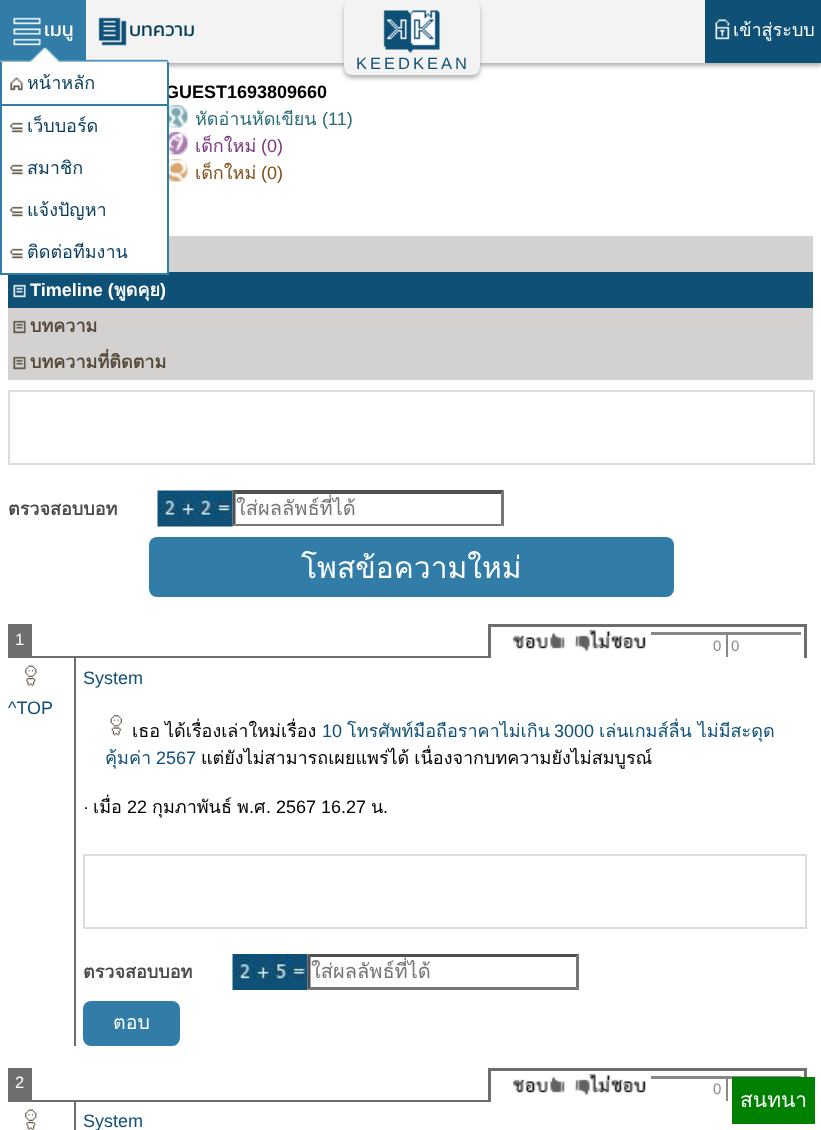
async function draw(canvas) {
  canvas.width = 821;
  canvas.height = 1130;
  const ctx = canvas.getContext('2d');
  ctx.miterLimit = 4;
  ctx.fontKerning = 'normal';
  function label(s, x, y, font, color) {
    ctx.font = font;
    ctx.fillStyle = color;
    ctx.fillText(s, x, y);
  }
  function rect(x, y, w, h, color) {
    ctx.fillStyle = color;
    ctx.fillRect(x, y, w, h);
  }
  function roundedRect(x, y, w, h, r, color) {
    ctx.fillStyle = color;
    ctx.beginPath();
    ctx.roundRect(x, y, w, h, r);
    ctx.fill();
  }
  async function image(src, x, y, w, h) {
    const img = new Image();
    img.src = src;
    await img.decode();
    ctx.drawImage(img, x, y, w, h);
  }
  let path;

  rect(0, 0, 821, 1130, '#fff');
  ctx.fillStyle = '#b1b1b1';
  ctx.filter = 'blur(2px)';
  ctx.beginPath();
  ctx.rect(0, 3, 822, 63);
  ctx.fill();
  ctx.filter = 'none';
  rect(0, 0, 705, 63, '#f3f3f3');
  rect(0, 0, 86, 60, '#317da8');
  await image('assets/img1.png', 13, 17, 28, 29);
  label('เมนู', 44, 36, '19.5px Kanit', '#fff');
  await image('assets/img2.png', 0, 47, 168, 15);
  label('GUEST1693809660', 165, 98, 'bold 18px Liberation Sans', '#000');
  rect(8, 272, 805, 36, '#0f5076');
  rect(2, 62, 165, 211, '#fff');
  rect(167, 62, 2, 213, '#317da8');
  rect(0, 62, 2, 213, '#317da8');
  rect(2, 273, 165, 2, '#317da8');
  rect(2, 104, 165, 2, '#317da8');
  await image('assets/img3.png', 10, 77, 13, 14);
  label('หน้าหลัก', 27, 89, '18px Loma', '#063c5b');
  await image('assets/img4.png', 10, 122, 13, 11);
  label('เว็บบอร์ด', 27, 132, '18px Loma', '#063c5b');
  await image('assets/img4.png', 10, 164, 13, 11);
  label('สมาชิก', 27, 174, '18px Loma', '#063c5b');
  await image('assets/img4.png', 10, 206, 13, 11);
  label('แจ้งปัญหา', 27, 216, '18px Loma', '#063c5b');
  await image('assets/img4.png', 10, 248, 13, 11);
  label('ติดต่อทีมงาน', 27, 258, '18px Loma', '#063c5b');
  await image('assets/img5.png', 98, 17, 29, 29);
  label('บทความ', 129, 36, '19.5px Kanit', '#063c5b');
  ctx.fillStyle = '#b1b1b1';
  ctx.filter = 'blur(2px)';
  ctx.beginPath();
  ctx.roundRect(344, 3, 136, 75, 8);
  ctx.fill();
  ctx.filter = 'none';
  roundedRect(344, 0, 136, 75, 8, '#f3f3f3');
  await image('assets/img6.png', 383, 10, 57, 43);
  ctx.letterSpacing = '3px';
  label('KEEDKEAN', 356, 69, '16.5px Liberation Sans', '#0f5076');
  rect(705, 0, 116, 63, '#0f5076');
  await image('assets/img7.png', 715, 19, 15, 21);
  ctx.letterSpacing = '0px';
  label('เข้าสู่ระบบ', 733, 36, '18px Loma', '#fff');
  await image('assets/img8.png', 169, 105, 19, 23);
  label('หัดอ่านหัดเขียน', 195, 125, '18px Loma', '#2c6c76');
  label('(11)', 322, 125, '18px Liberation Sans', '#2c6c76');
  await image('assets/img9.png', 169, 132, 19, 23);
  label('เด็กใหม่', 195, 152, '18px Loma', '#7a3480');
  label('(0)', 261, 152, '18px Liberation Sans', '#7a3480');
  await image('assets/img10.png', 169, 159, 19, 23);
  label('เด็กใหม่', 195, 179, '18px Loma', '#824e15');
  label('(0)', 261, 179, '18px Liberation Sans', '#824e15');
  rect(169, 236, 644, 36, '#d3d2d1');
  await image('assets/img11.png', 13, 284, 13, 14);
  label('Timeline (', 30, 296, 'bold 18px Liberation Sans', '#fff');
  label('พูดคุย', 114, 296, 'bold 18px Loma', '#fff');
  label(')', 160, 296, 'bold 18px Liberation Sans', '#fff');
  rect(8, 308, 805, 72, '#d3d2d1');
  await image('assets/img12.png', 13, 320, 13, 14);
  label('บทความ', 30, 332, 'bold 18px Loma', '#54493a');
  await image('assets/img12.png', 13, 356, 13, 14);
  label('บทความที่ติดตาม', 30, 368, 'bold 18px Loma', '#54493a');
  ctx.strokeStyle = '#ddd';
  ctx.lineWidth = 2;
  ctx.strokeRect(9, 391, 805, 73);
  label('ตรวจสอบบอท', 8, 515, 'bold 18px Loma', '#494949');
  await image('assets/img13.png', 157, 490, 76, 37);
  ctx.fillStyle = '#4f4f4f';
  path = new Path2D('M232 490H504L501 494H236Z');
  ctx.fill(path);
  ctx.fillStyle = '#767676';
  path = new Path2D('M504 490.5V526.5L501 523.5V493.5Z');
  ctx.fill(path);
  path = new Path2D('M504 526H232L236 524H501Z');
  ctx.fill(path);
  ctx.fillStyle = '#4f4f4f';
  path = new Path2D('M232.5 526.5V490.5L235.5 493.5V523.5Z');
  ctx.fill(path);
  label('ใส่ผลลัพธ์ที่ได้', 236, 515, '20px Loma', '#757575');
  roundedRect(149, 537, 525, 60, 8, '#317da8');
  label('โพสข้อความใหม่', 301, 578, '30px Loma', '#fff');
  rect(8, 656, 799, 2, '#6e6e6e');
  rect(8, 624, 24, 32, '#6e6e6e');
  label('1', 15, 645, '16.5px Liberation Sans', '#fff');
  rect(488, 624, 319, 32, '#6e6e6e');
  rect(491, 627, 313, 31, '#fff');
  await image('assets/img14.png', 512, 632, 54, 17);
  await image('assets/img15.png', 574, 630, 72, 22);
  rect(651, 632, 150, 3, '#888');
  rect(726, 635, 2, 22, '#888');
  label('0', 713, 651, '15px Liberation Sans', '#888');
  label('0', 731, 651, '15px Liberation Sans', '#888');
  await image('assets/img16.png', 25, 665, 12, 21);
  label('^TOP', 8, 714, '18px Liberation Sans', '#0f5076');
  rect(74, 657, 2, 389, '#6e6e6e');
  label('System', 83, 684, '18px Liberation Sans', '#0f5076');
  await image('assets/img17.png', 110, 715, 12, 21);
  ctx.wordSpacing = '-1px';
  label('เธอ ได้เรื่องเล่าใหม่เรื่อง', 132, 737, '18px Loma', '#000');
  ctx.wordSpacing = '0px';
  label('10', 322, 737, '18px Liberation Sans', '#0f5076');
  label('โทรศัพท์มือถือราคาไม่เกิน', 347, 737, '18px Loma', '#0f5076');
  label('3000', 554, 737, '18px Liberation Sans', '#0f5076');
  label('เล่นเกมส์ลื่น ไม่มีสะดุด', 599, 737, '18px Loma', '#0f5076');
  label('คุ้มค่า', 105, 764, '18px Loma', '#0f5076');
  label('2567', 156, 764, '18px Liberation Sans', '#0f5076');
  ctx.wordSpacing = '-1px';
  label('แต่ยังไม่สามารถเผยแพร่ได้ เนื่องจากบทความยังไม่สมบูรณ์', 201, 764, '18px Loma', '#000');
  ctx.wordSpacing = '0px';
  label('·', 83, 813, '18px Liberation Sans', '#000');
  label('เมื่อ', 93, 813, '18px Loma', '#000');
  label('22', 127, 813, '18px Liberation Sans', '#000');
  label('กุมภาพันธ์', 152, 813, '18px Loma', '#000');
  label('พ', 237, 813, '18px Loma', '#000');
  label('ศ', 254, 813, '18px Loma', '#000');
  label('. 2567 16.27', 266, 813, '18px Liberation Sans', '#000');
  label('น', 371, 813, '18px Loma', '#000');
  label('.', 249, 813, '18px Liberation Sans', '#000');
  label('.', 383, 813, '18px Liberation Sans', '#000');
  ctx.strokeRect(84, 855, 722, 73);
  label('ตรวจสอบบอท', 83, 978, 'bold 18px Loma', '#494949');
  await image('assets/img18.png', 232, 954, 76, 36);
  ctx.fillStyle = '#4f4f4f';
  path = new Path2D('M308 954H579L576 957H310Z');
  ctx.fill(path);
  ctx.fillStyle = '#767676';
  path = new Path2D('M579 954V990L576 987V957Z');
  ctx.fill(path);
  path = new Path2D('M579 990H308L310 987H576Z');
  ctx.fill(path);
  ctx.fillStyle = '#4f4f4f';
  path = new Path2D('M307.5 990V954L310.5 957V987Z');
  ctx.fill(path);
  label('ใส่ผลลัพธ์ที่ได้', 311, 978, '20px Loma', '#757575');
  roundedRect(83, 1001, 97, 45, 8, '#317da8');
  label('ตอบ', 113, 1029, '19.5px Loma', '#fff');
  rect(8, 1100, 483, 2, '#6e6e6e');
  rect(8, 1068, 24, 32, '#6e6e6e');
  label('2', 15, 1088, '16.5px Liberation Sans', '#fff');
  rect(488, 1068, 319, 32, '#6e6e6e');
  rect(491, 1071, 313, 29, '#fff');
  await image('assets/img14.png', 512, 1076, 54, 17);
  await image('assets/img15.png', 574, 1074, 72, 22);
  rect(651, 1076, 150, 3, '#888');
  rect(726, 1079, 2, 22, '#888');
  label('0', 713, 1094, '15px Liberation Sans', '#888');
  await image('assets/img16.png', 25, 1109, 12, 21);
  rect(74, 1101, 2, 29, '#6e6e6e');
  label('System', 83, 1127, '18px Liberation Sans', '#0f5076');
  rect(732, 1077, 83, 47, '#008000');
  label('สนทนา', 740, 1107, '21px Loma', '#fff');
}

draw(document.querySelector('canvas'));
